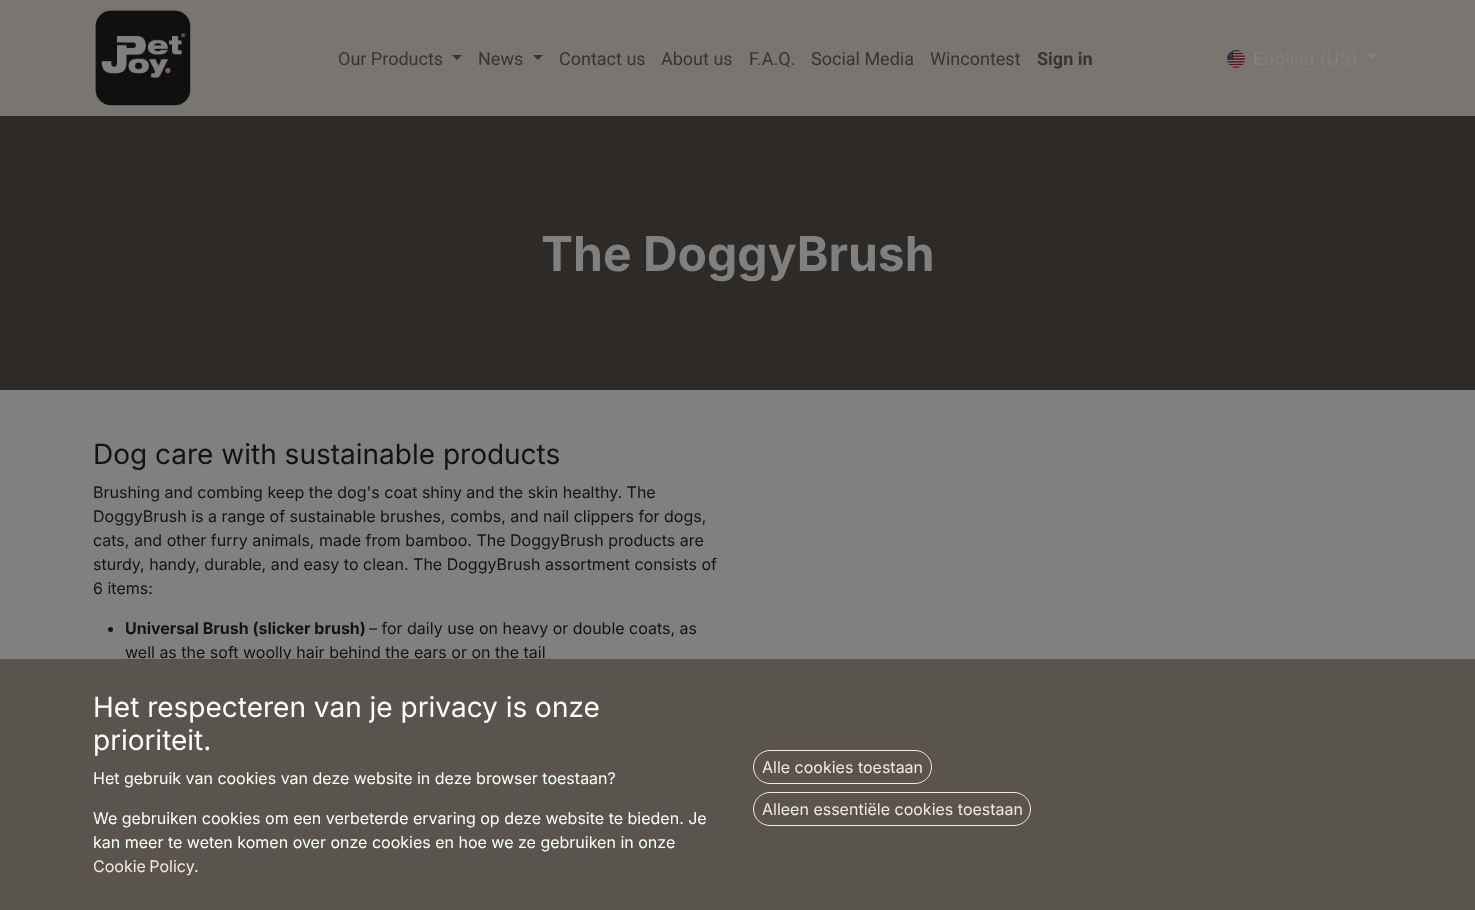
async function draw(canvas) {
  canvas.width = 1475;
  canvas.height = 910;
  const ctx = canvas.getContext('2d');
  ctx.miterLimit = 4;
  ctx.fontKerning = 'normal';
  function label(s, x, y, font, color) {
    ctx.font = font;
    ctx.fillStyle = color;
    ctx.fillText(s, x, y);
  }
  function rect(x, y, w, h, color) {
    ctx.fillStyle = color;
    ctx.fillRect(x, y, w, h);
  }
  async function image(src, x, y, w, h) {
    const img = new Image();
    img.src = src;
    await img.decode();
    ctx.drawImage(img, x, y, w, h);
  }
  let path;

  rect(0, 0, 1475, 910, '#808080');
  rect(0, 0, 1475, 116, '#797570');
  await image('assets/img1.png', 95, 10, 96, 96);
  label('Our Products', 338, 65, '18px Roboto', '#373532');
  path = new Path2D('M452 55H462L457 60Z');
  ctx.fill(path);
  label('News', 478, 65, '18px Roboto', '#373532');
  path = new Path2D('M533 55H543L538 60Z');
  ctx.fill(path);
  label('Contact us', 559, 65, '18px Roboto', '#373532');
  label('About us', 661, 65, '18px Roboto', '#373532');
  label('F.A.Q.', 749, 65, '18px Roboto', '#373532');
  label('Social Media', 811, 65, '18px Roboto', '#373532');
  label('Wincontest', 930, 65, '18px Roboto', '#373532');
  label('Sign in', 1037, 65, 'bold 18px Roboto', '#373532');
  await image('assets/img2.png', 1227, 50, 18, 18);
  label('English (US)', 1253, 65, '18px Inter', '#808080');
  path = new Path2D('M1367 54H1377L1372 59Z');
  ctx.fill(path);
  rect(0, 116, 1475, 274, '#2d2a27');
  label('The DoggyBrush', 541, 271, 'bold 48px Inter', '#808080');
  label('Dog care with sustainable products', 93, 464, '28px Inter', '#111315');
  label('Brushing and combing keep the dog\'s coat shiny and the skin healthy. The', 93, 498, '16px Inter', '#111315');
  label('DoggyBrush is a range of sustainable brushes, combs, and nail clippers for dogs,', 93, 522, '16px Inter', '#111315');
  label('cats, and other furry animals, made from bamboo. The DoggyBrush products are', 93, 546, '16px Inter', '#111315');
  label('sturdy, handy, durable, and easy to clean. The DoggyBrush assortment consists of', 93, 570, '16px Inter', '#111315');
  label('6 items:', 93, 594, '16px Inter', '#111315');
  ctx.beginPath();
  ctx.arc(110.5, 629.5, 2.5, 0, 2 * Math.PI);
  ctx.fill();
  label('Universal Brush (slicker brush)', 125, 634, 'bold 16px Inter', '#111315');
  label('– for daily use on heavy or double coats, as', 369, 634, '16px Inter', '#111315');
  label('well as the soft woolly hair behind the ears or on the tail', 125, 658, '16px Inter', '#111315');
  rect(0, 659, 1475, 251, '#59544d');
  label('Het respecteren van je privacy is onze', 93, 717, '28px Inter', '#fff');
  label('prioriteit.', 93, 750, '28px Inter', '#fff');
  label('Het gebruik van cookies van deze website in deze browser toestaan?', 93, 784, '16px Inter', '#fff');
  label('We gebruiken cookies om een verbeterde ervaring op deze website te bieden. Je', 93, 824, '16px Inter', '#fff');
  label('kan meer te weten komen over onze cookies en hoe we ze gebruiken in onze', 93, 848, '16px Inter', '#fff');
  ctx.wordSpacing = '-1px';
  label('Cookie Policy', 93, 872, '16px Inter', '#f2eadf');
  ctx.wordSpacing = '0px';
  label('.', 194, 872, '16px Inter', '#fff');
  ctx.beginPath();
  ctx.roundRect(753.5, 750.5, 178, 33, 16.5);
  ctx.strokeStyle = '#f2eadf';
  ctx.stroke();
  label('Alle cookies toestaan', 762, 773, '16px Inter', '#f2eadf');
  ctx.beginPath();
  ctx.roundRect(753.5, 792.5, 277, 33, 16.5);
  ctx.stroke();
  label('Alleen essentiële cookies toestaan', 762, 815, '16px Inter', '#f2eadf');
}

draw(document.querySelector('canvas'));
